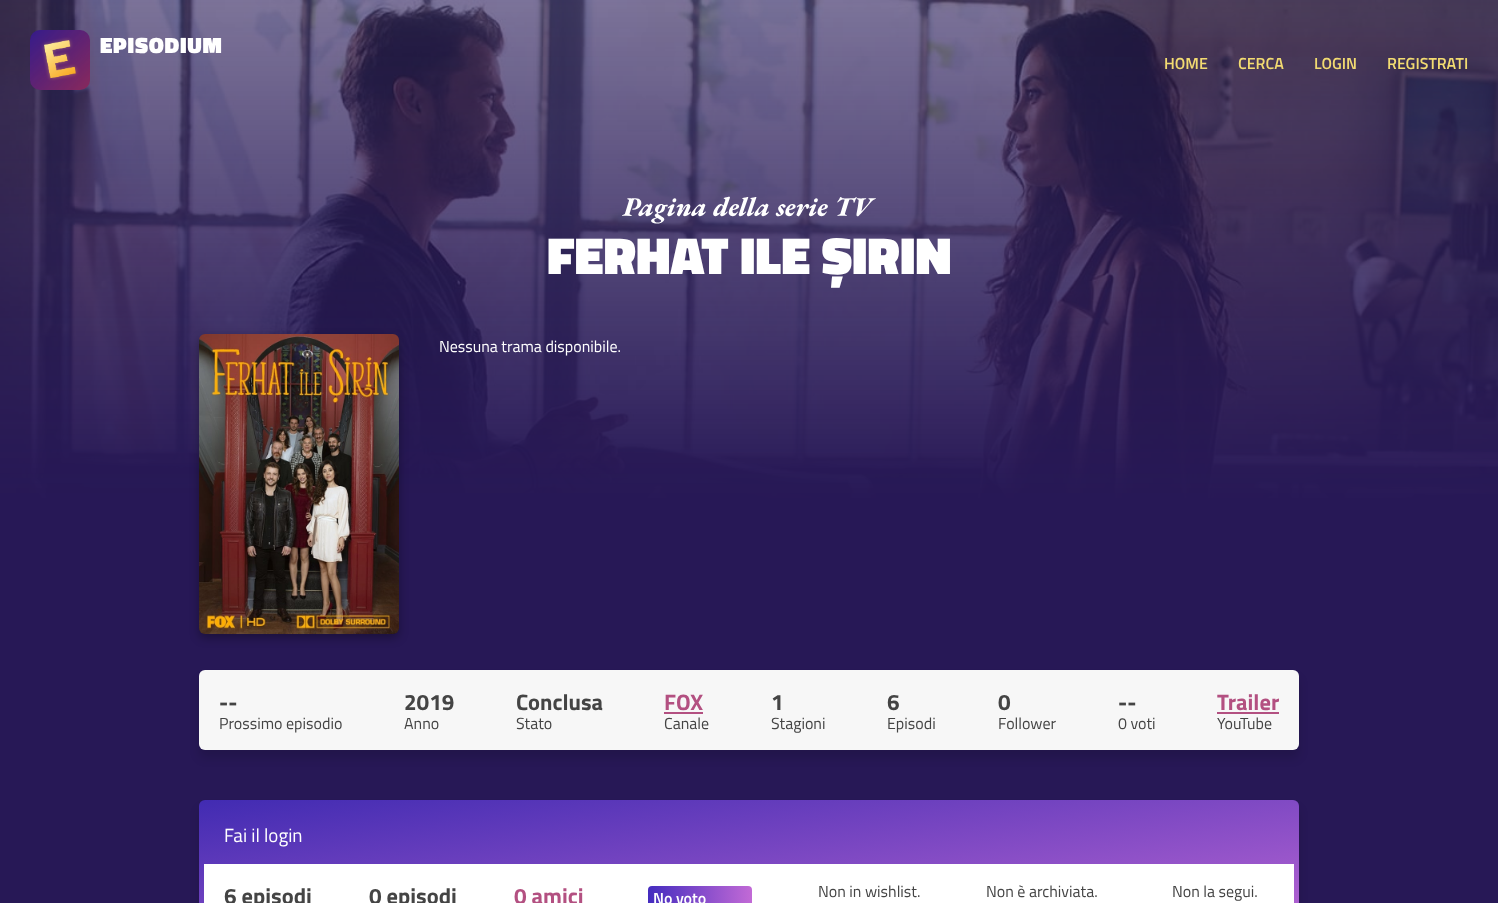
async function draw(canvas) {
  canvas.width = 1498;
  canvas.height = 903;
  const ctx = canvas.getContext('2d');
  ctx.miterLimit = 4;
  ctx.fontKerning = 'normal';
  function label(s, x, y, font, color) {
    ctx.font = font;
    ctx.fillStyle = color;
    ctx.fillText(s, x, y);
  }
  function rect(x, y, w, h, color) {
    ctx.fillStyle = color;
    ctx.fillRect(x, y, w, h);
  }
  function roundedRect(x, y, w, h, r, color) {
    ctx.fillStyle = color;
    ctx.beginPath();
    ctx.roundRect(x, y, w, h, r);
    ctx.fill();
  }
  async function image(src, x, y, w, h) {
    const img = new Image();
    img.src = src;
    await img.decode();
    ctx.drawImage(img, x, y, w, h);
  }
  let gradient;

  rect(0, 0, 1498, 903, '#271856');
  await image('assets/img2.png', 0, 0, 1498, 500);
  await image('assets/img1.png', 30, 30, 60, 60);
  ctx.letterSpacing = '0.75px';
  label('EPISODIUM', 100, 53, '900 22.5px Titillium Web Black', '#fff');
  ctx.letterSpacing = '0px';
  label('HOME', 1164, 69, '600 16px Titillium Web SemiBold', '#f2db71');
  label('CERCA', 1238, 69, '600 16px Titillium Web SemiBold', '#f2db71');
  label('LOGIN', 1314, 69, '600 16px Titillium Web SemiBold', '#f2db71');
  label('REGISTRATI', 1387, 69, '600 16px Titillium Web SemiBold', '#f2db71');
  await image('assets/img3.png', 622, 196, 254, 28);
  label('FERHAT ILE ŞIRIN', 547, 274, '900 52.75px Titillium Web Black', '#fff');
  ctx.fillStyle = '#0000004d';
  ctx.filter = 'blur(5px)';
  ctx.beginPath();
  ctx.roundRect(199, 338, 200, 300, 6);
  ctx.fill();
  ctx.filter = 'none';
  await image('assets/img4.png', 199, 334, 200, 300);
  label('Nessuna trama disponibile.', 439, 352, '16px Titillium Web', '#fff');
  ctx.fillStyle = '#00000021';
  ctx.filter = 'blur(5px)';
  ctx.beginPath();
  ctx.roundRect(199, 678, 1100, 80, 6);
  ctx.fill();
  ctx.filter = 'none';
  roundedRect(199, 670, 1100, 80, 6, '#f7f7f7');
  label('--', 219, 710, 'bold 22.5px Titillium Web', '#444');
  label('Prossimo episodio', 219, 729, '16px Titillium Web', '#444');
  label('2019', 404, 710, 'bold 22.5px Titillium Web', '#444');
  label('Anno', 404, 729, '16px Titillium Web', '#444');
  label('Conclusa', 516, 710, 'bold 22.5px Titillium Web', '#444');
  label('Stato', 516, 729, '16px Titillium Web', '#444');
  label('FOX', 664, 710, 'bold 22.5px Titillium Web', '#b35081');
  rect(664, 712, 39, 2, '#b35081');
  label('Canale', 664, 729, '16px Titillium Web', '#444');
  label('1', 771, 710, 'bold 22.5px Titillium Web', '#444');
  label('Stagioni', 771, 729, '16px Titillium Web', '#444');
  label('6', 887, 710, 'bold 22.5px Titillium Web', '#444');
  label('Episodi', 887, 729, '16px Titillium Web', '#444');
  label('0', 998, 710, 'bold 22.5px Titillium Web', '#444');
  label('Follower', 998, 729, '16px Titillium Web', '#444');
  label('--', 1118, 710, 'bold 22.5px Titillium Web', '#444');
  label('0 voti', 1118, 729, '16px Titillium Web', '#444');
  label('Trailer', 1217, 710, 'bold 22.5px Titillium Web', '#b35081');
  rect(1217, 712, 62, 2, '#b35081');
  label('YouTube', 1217, 729, '16px Titillium Web', '#444');
  ctx.fillStyle = '#00000021';
  ctx.filter = 'blur(5px)';
  ctx.beginPath();
  ctx.roundRect(199, 808, 1100, 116, 6);
  ctx.fill();
  ctx.filter = 'none';
  gradient = ctx.createLinearGradient(728, 726, 770, 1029);
  gradient.addColorStop(0, '#412bb2');
  gradient.addColorStop(1, '#c26ad6');
  ctx.fillStyle = gradient;
  ctx.beginPath();
  ctx.roundRect(199, 800, 1100, 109, 6);
  ctx.fill();
  label('Fai il login', 224, 842, '19px Titillium Web', '#fff');
  rect(204, 864, 1090, 39, '#fff');
  label('6 episodi', 224, 904, 'bold 22.5px Titillium Web', '#444');
  label('0 episodi', 369, 904, 'bold 22.5px Titillium Web', '#444');
  label('0 amici', 514, 904, 'bold 22.5px Titillium Web', '#b35081');
  gradient = ctx.createLinearGradient(648, 898, 752, 898);
  gradient.addColorStop(0, '#442cbf');
  gradient.addColorStop(1, '#c26ad6');
  ctx.fillStyle = gradient;
  ctx.beginPath();
  ctx.roundRect(648, 886, 104, 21, 4);
  ctx.fill();
  label('No voto', 653, 904, '600 16px Titillium Web SemiBold', '#fff');
  label('Non in wishlist.', 818, 897, '16px Titillium Web', '#444');
  label('Non è archiviata.', 986, 897, '16px Titillium Web', '#444');
  label('Non la segui.', 1172, 897, '16px Titillium Web', '#444');
}

draw(document.querySelector('canvas'));
